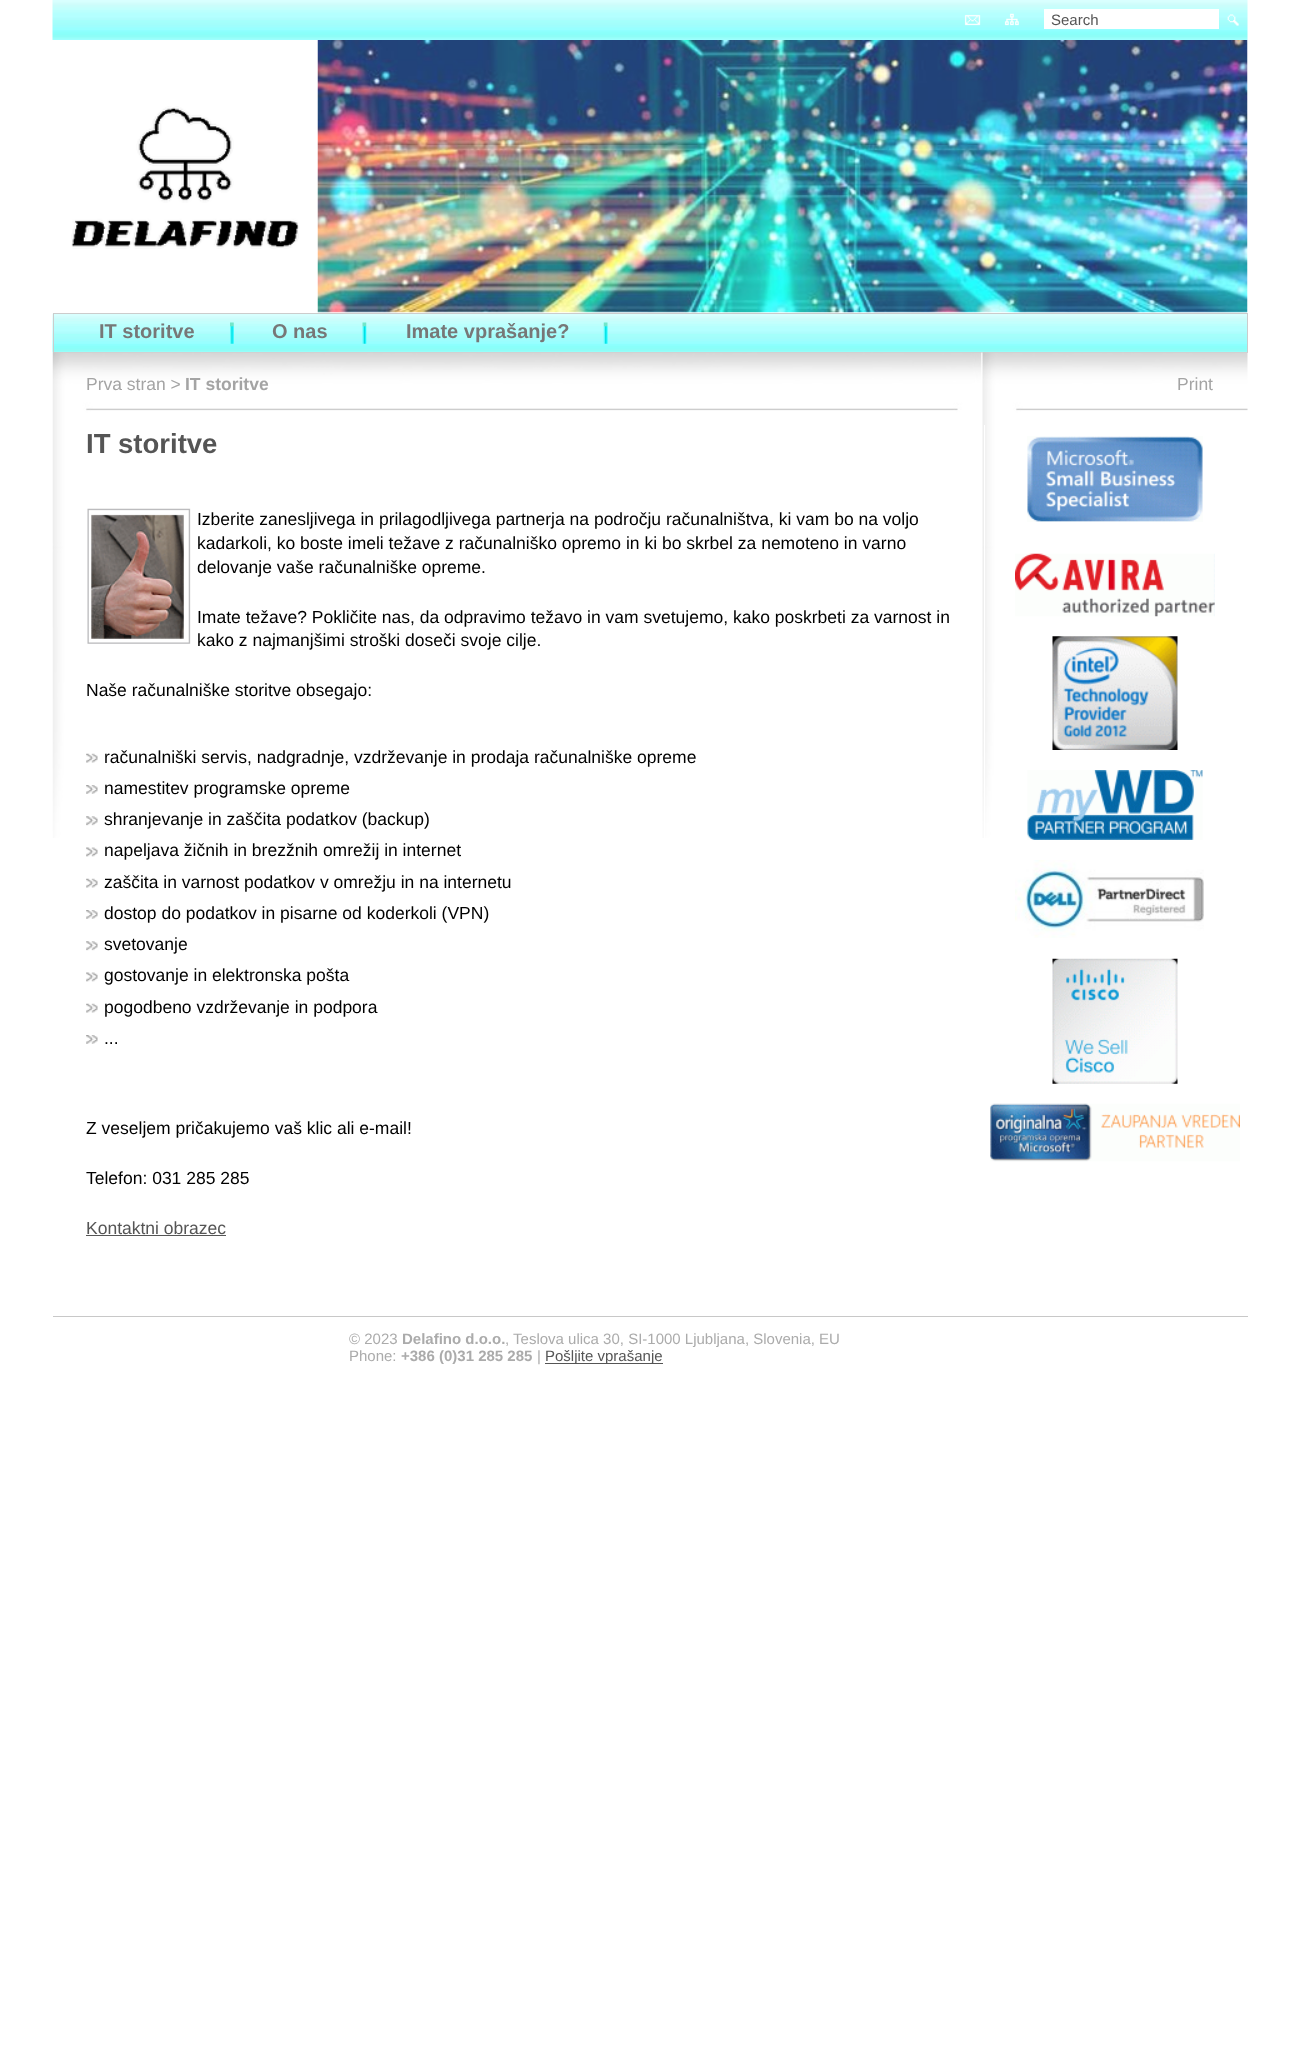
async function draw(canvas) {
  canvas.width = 1298;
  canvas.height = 2051;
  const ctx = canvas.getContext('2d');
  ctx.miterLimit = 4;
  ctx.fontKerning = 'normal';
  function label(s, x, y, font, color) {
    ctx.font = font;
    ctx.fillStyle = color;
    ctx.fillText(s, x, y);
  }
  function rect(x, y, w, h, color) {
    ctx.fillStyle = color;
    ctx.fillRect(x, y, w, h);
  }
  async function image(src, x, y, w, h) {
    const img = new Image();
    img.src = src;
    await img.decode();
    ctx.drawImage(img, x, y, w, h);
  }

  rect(0, 0, 1298, 2051, '#fff');
  await image('assets/img1.png', 52, 0, 1196, 40);
  await image('assets/img2.png', 964, 14, 17, 12);
  await image('assets/img3.png', 1004, 13, 15, 13);
  rect(1044, 9, 175, 20, '#fff');
  label('Search', 1051, 25, '15px Liberation Sans', '#555');
  await image('assets/img4.png', 1227, 14, 12, 12);
  await image('assets/img5.png', 71, 106, 228, 143);
  await image('assets/img6.png', 317, 40, 931, 273);
  await image('assets/img7.png', 52, 313, 1195, 40);
  ctx.strokeStyle = '#ccc';
  ctx.strokeRect(53.5, 313.5, 1194, 39);
  await image('assets/img8.png', 230, 322, 4, 22);
  label('IT storitve', 99, 338, 'bold 20px Liberation Sans', '#777');
  await image('assets/img9.png', 362, 322, 5, 22);
  label('O nas', 272, 338, 'bold 20px Liberation Sans', '#777');
  await image('assets/img10.png', 603, 322, 5, 22);
  label('Imate vprašanje?', 406, 338, 'bold 20px Liberation Sans', '#777');
  await image('assets/img11.png', 52, 352, 1196, 486);
  label('Prva stran >', 86, 390, '17.5px Liberation Sans', '#a4a4a4');
  label('IT storitve', 185, 390, 'bold 17.5px Liberation Sans', '#a4a4a4');
  label('Print', 1177, 390, '17.5px Liberation Sans', '#a4a4a4');
  label('IT storitve', 86, 453, 'bold 27.5px Liberation Sans', '#555');
  await image('assets/img12.png', 87, 508, 104, 136);
  label('Izberite zanesljivega in prilagodljivega partnerja na področju računalništva, ki vam bo na voljo', 197, 525, '17.5px Liberation Sans', '#000');
  label('kadarkoli, ko boste imeli težave z računalniško opremo in ki bo skrbel za nemoteno in varno', 197, 549, '17.5px Liberation Sans', '#000');
  label('delovanje vaše računalniške opreme.', 197, 573, '17.5px Liberation Sans', '#000');
  label('Imate težave? Pokličite nas, da odpravimo težavo in vam svetujemo, kako poskrbeti za varnost in', 197, 623, '17.5px Liberation Sans', '#000');
  label('kako z najmanjšimi stroški doseči svoje cilje.', 197, 646, '17.5px Liberation Sans', '#000');
  label('Naše računalniške storitve obsegajo:', 86, 696, '17.5px Liberation Sans', '#000');
  await image('assets/img13.png', 86, 753, 12, 10);
  label('računalniški servis, nadgradnje, vzdrževanje in prodaja računalniške opreme', 104, 763, '17.5px Liberation Sans', '#000');
  await image('assets/img14.png', 86, 785, 12, 9);
  label('namestitev programske opreme', 104, 794, '17.5px Liberation Sans', '#000');
  await image('assets/img15.png', 86, 816, 12, 10);
  label('shranjevanje in zaščita podatkov (backup)', 104, 825, '17.5px Liberation Sans', '#000');
  await image('assets/img16.png', 86, 847, 12, 10);
  label('napeljava žičnih in brezžnih omrežij in internet', 104, 856, '17.5px Liberation Sans', '#000');
  await image('assets/img13.png', 86, 878, 12, 10);
  label('zaščita in varnost podatkov v omrežju in na internetu', 104, 888, '17.5px Liberation Sans', '#000');
  await image('assets/img14.png', 86, 910, 12, 9);
  label('dostop do podatkov in pisarne od koderkoli (VPN)', 104, 919, '17.5px Liberation Sans', '#000');
  await image('assets/img15.png', 86, 941, 12, 10);
  label('svetovanje', 104, 950, '17.5px Liberation Sans', '#000');
  await image('assets/img16.png', 86, 972, 12, 10);
  label('gostovanje in elektronska pošta', 104, 981, '17.5px Liberation Sans', '#000');
  await image('assets/img13.png', 86, 1003, 12, 10);
  label('pogodbeno vzdrževanje in podpora', 104, 1013, '17.5px Liberation Sans', '#000');
  await image('assets/img14.png', 86, 1035, 12, 9);
  label('...', 104, 1044, '17.5px Liberation Sans', '#000');
  label('Z veseljem pričakujemo vaš klic ali e-mail!', 86, 1134, '17.5px Liberation Sans', '#000');
  label('Telefon: 031 285 285', 86, 1184, '17.5px Liberation Sans', '#000');
  label('Kontaktni obrazec', 86, 1234, '17.5px Liberation Sans', '#555');
  rect(86, 1235, 140, 1, '#555');
  rect(984, 425, 1, 413, '#fff');
  await image('assets/img17.png', 1027, 436, 176, 86);
  await image('assets/img18.png', 1015, 553, 200, 64);
  await image('assets/img19.png', 1052, 636, 126, 114);
  await image('assets/img20.png', 1027, 770, 176, 70);
  await image('assets/img21.png', 1015, 860, 189, 78);
  await image('assets/img22.png', 1052, 958, 126, 126);
  await image('assets/img23.png', 990, 1103, 250, 59);
  rect(53, 1316, 1195, 1, '#c8c8c8');
  label('© 2023', 349, 1344, '15px Liberation Sans', '#ababab');
  label('Delafino d.o.o.', 402, 1344, 'bold 15px Liberation Sans', '#ababab');
  label(', Teslova ulica 30, SI-1000 Ljubljana, Slovenia, EU', 505, 1344, '15px Liberation Sans', '#ababab');
  label('Phone:', 349, 1361, '15px Liberation Sans', '#ababab');
  label('+386 (0)31 285 285', 401, 1361, 'bold 15px Liberation Sans', '#ababab');
  label('|', 537, 1361, '15px Liberation Sans', '#ababab');
  rect(545, 1363, 118, 1, '#555');
  label('Pošljite vprašanje', 545, 1361, '15px Liberation Sans', '#555');
}

draw(document.querySelector('canvas'));
